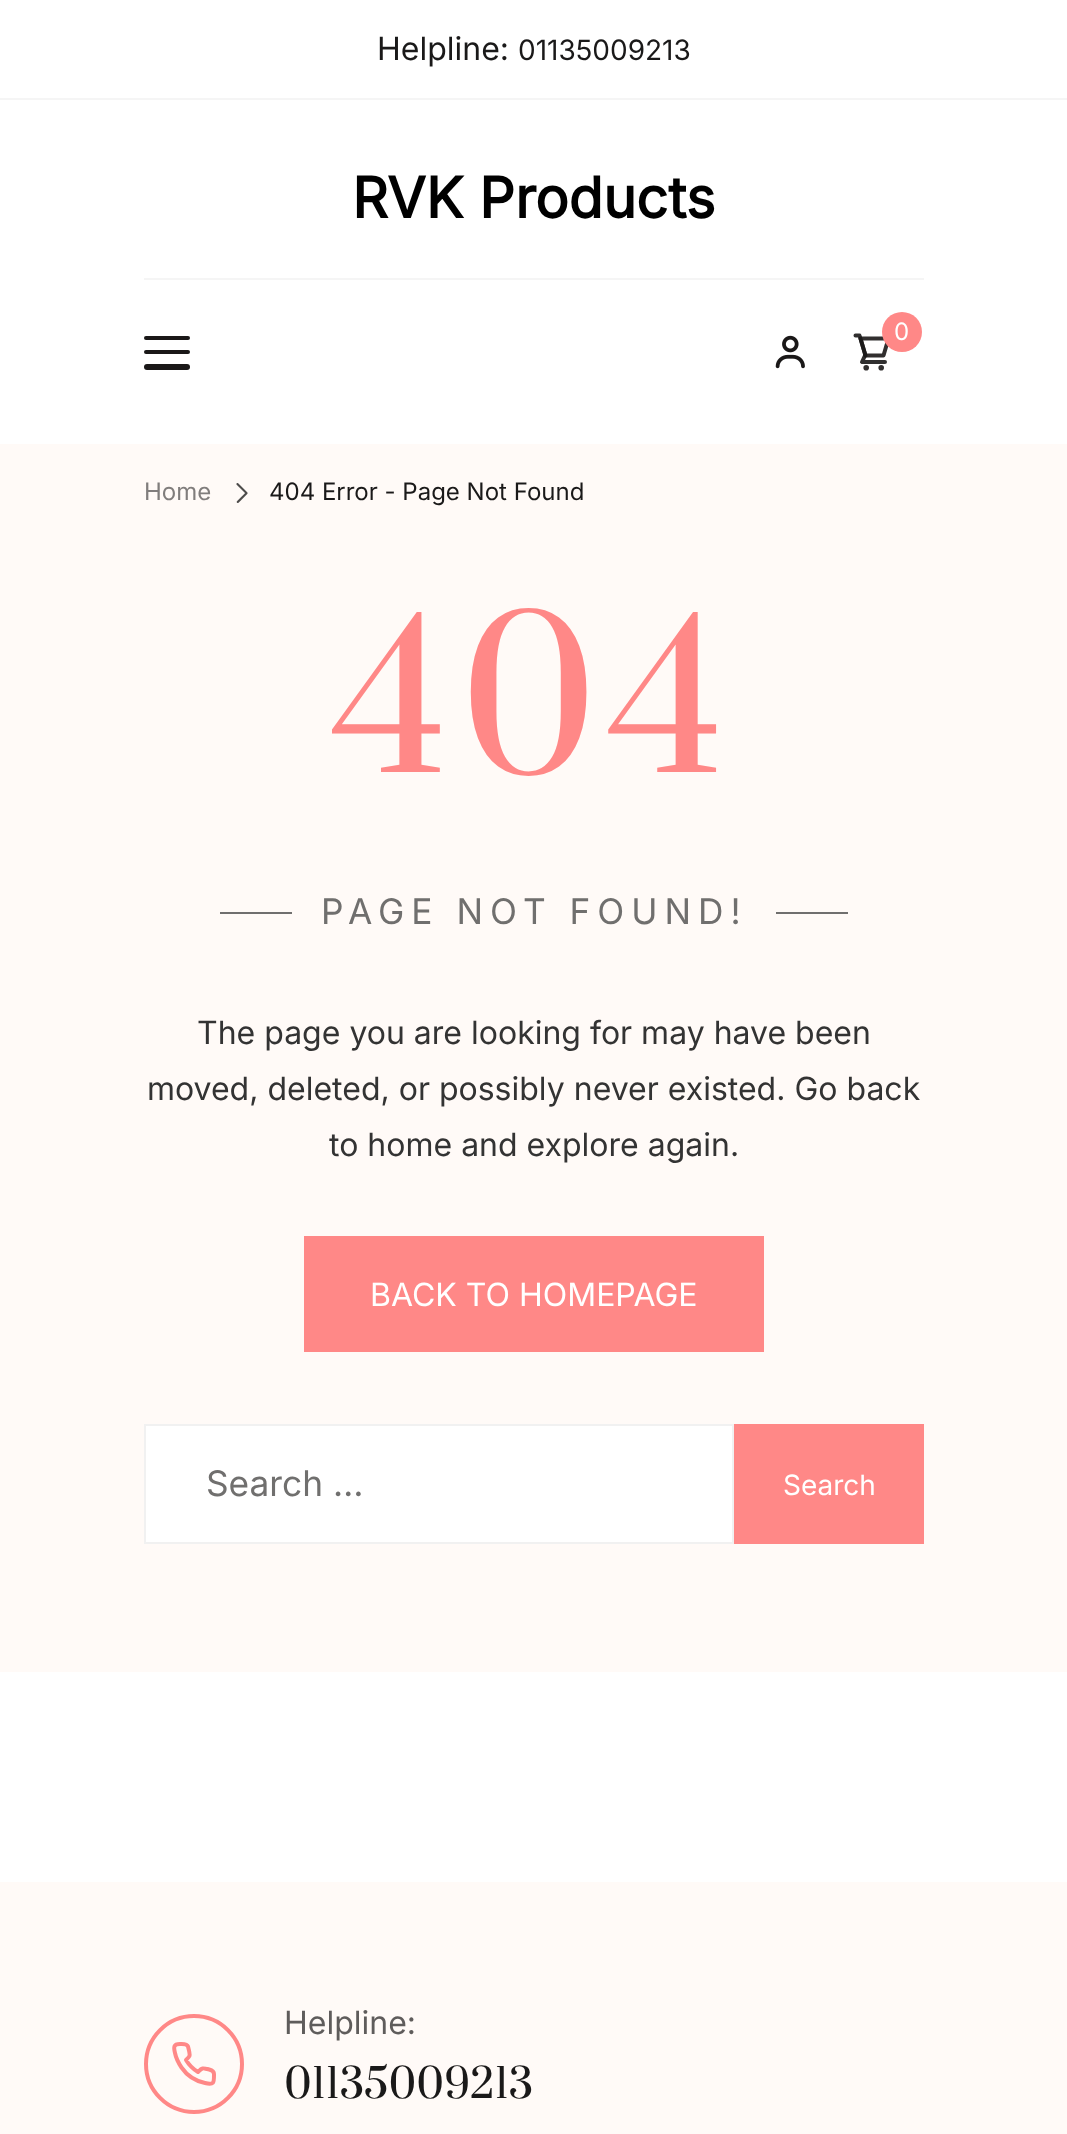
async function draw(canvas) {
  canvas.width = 1067;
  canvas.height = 2134;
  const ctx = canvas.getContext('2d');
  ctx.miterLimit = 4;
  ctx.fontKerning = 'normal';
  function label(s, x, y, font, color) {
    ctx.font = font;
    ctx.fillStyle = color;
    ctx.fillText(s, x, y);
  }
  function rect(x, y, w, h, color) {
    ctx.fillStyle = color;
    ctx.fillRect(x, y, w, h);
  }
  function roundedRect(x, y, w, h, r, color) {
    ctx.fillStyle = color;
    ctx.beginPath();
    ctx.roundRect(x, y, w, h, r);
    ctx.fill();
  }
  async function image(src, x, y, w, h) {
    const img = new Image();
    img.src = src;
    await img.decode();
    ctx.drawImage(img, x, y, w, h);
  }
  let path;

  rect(0, 0, 1067, 2134, '#fff');
  rect(0, 98, 1067, 2, '#f5f5f5');
  label('Helpline:', 377, 60, '32px Inter', '#1a1919');
  label('01135009213', 518, 60, '28px Inter', '#1a1919');
  rect(144, 278, 780, 2, '#f5f5f5');
  label('RVK Products', 352, 218, 'bold 56px Inter', '#000');
  path = new Path2D('M888.5 338.5H860.5L865.5 355.5H883.5Z');
  ctx.strokeStyle = '#312f2f';
  ctx.lineWidth = 4;
  ctx.lineCap = 'round';
  ctx.lineJoin = 'round';
  ctx.stroke(path);
  path = new Path2D('M865 355.5L862 362H885');
  ctx.strokeStyle = '#1a1818e6';
  ctx.stroke(path);
  ctx.beginPath();
  ctx.arc(866.2, 367.8, 0.8, 0, 2 * Math.PI);
  ctx.strokeStyle = '#312f2f';
  ctx.stroke();
  ctx.beginPath();
  ctx.arc(881.2, 367.8, 0.8, 0, 2 * Math.PI);
  ctx.stroke();
  path = new Path2D('M865.5 355.5L859.5 335.5H855.5');
  ctx.strokeStyle = '#1a1818e6';
  ctx.stroke(path);
  ctx.fillStyle = '#ff8887';
  ctx.beginPath();
  ctx.arc(902, 332, 20, 0, 2 * Math.PI);
  ctx.fill();
  label('0', 894, 340, '24px Inter', '#fff');
  await image('assets/img1.png', 775, 335, 30, 34);
  roundedRect(144, 336, 46, 4, 2, '#1a1818');
  roundedRect(144, 350, 46, 4, 2, '#1a1818');
  roundedRect(144, 364, 46, 6, 3, '#1a1818');
  rect(0, 444, 1067, 1228, '#fffaf7');
  label('Home', 144, 500, '24px Inter', '#807d7c');
  await image('assets/img2.png', 236, 483, 12, 20);
  label('404 Error - Page Not Found', 269, 500, '24px Inter', '#1a1919');
  ctx.letterSpacing = '10px';
  label('404', 332, 772, '200px Prata', '#ff8887');
  rect(220, 912, 72, 2, '#706f6e');
  ctx.letterSpacing = '7px';
  label('PAGE NOT FOUND!', 321, 924, '35.25px Inter', '#706f6e');
  rect(776, 912, 72, 2, '#706f6e');
  ctx.letterSpacing = '0px';
  label('The page you are looking for may have been', 197, 1044, '32px Inter', '#333');
  label('moved, deleted, or possibly never existed. Go back', 147, 1100, '32px Inter', '#333');
  label('to home and explore again.', 329, 1156, '32px Inter', '#333');
  rect(304, 1236, 460, 116, '#ff8887');
  label('BACK TO HOMEPAGE', 370, 1306, '32px Inter', '#fff');
  ctx.beginPath();
  ctx.rect(145, 1425, 588, 118);
  ctx.fill();
  ctx.strokeStyle = '#f1f1f1';
  ctx.lineWidth = 2;
  ctx.lineJoin = 'miter';
  ctx.stroke();
  label('Search …', 206, 1496, '35.25px Inter', '#706f6e');
  rect(734, 1424, 190, 120, '#ff8887');
  label('Search', 783, 1495, '28px Inter', '#fff');
  rect(0, 1882, 1067, 252, '#fffaf7');
  path = new Path2D('M214 2074C214 2082 214.5 2085.5 205 2083C195.5 2081 187 2075.5 181.5 2067.5C178.5 2063 176 2058 175 2053C173.5 2047 173.5 2044 180 2044C183 2044 187 2043.5 188 2046.5L189 2050.5C190 2056 190.5 2055.5 186 2060C189 2065 193 2069 198 2072C199.5 2070.5 200.5 2069 202.5 2068.5C204 2068 206 2069 207.5 2069C210.5 2070 214 2070 214 2074Z');
  ctx.strokeStyle = '#ff8887';
  ctx.lineWidth = 4;
  ctx.lineJoin = 'round';
  ctx.stroke(path);
  ctx.beginPath();
  ctx.arc(194, 2064, 48, 0, 2 * Math.PI);
  ctx.stroke();
  label('Helpline:', 284, 2034, '32px Inter', '#5f5c5b');
  label('01135009213', 284, 2098, '40px Prata', '#1a1919');
}

draw(document.querySelector('canvas'));
